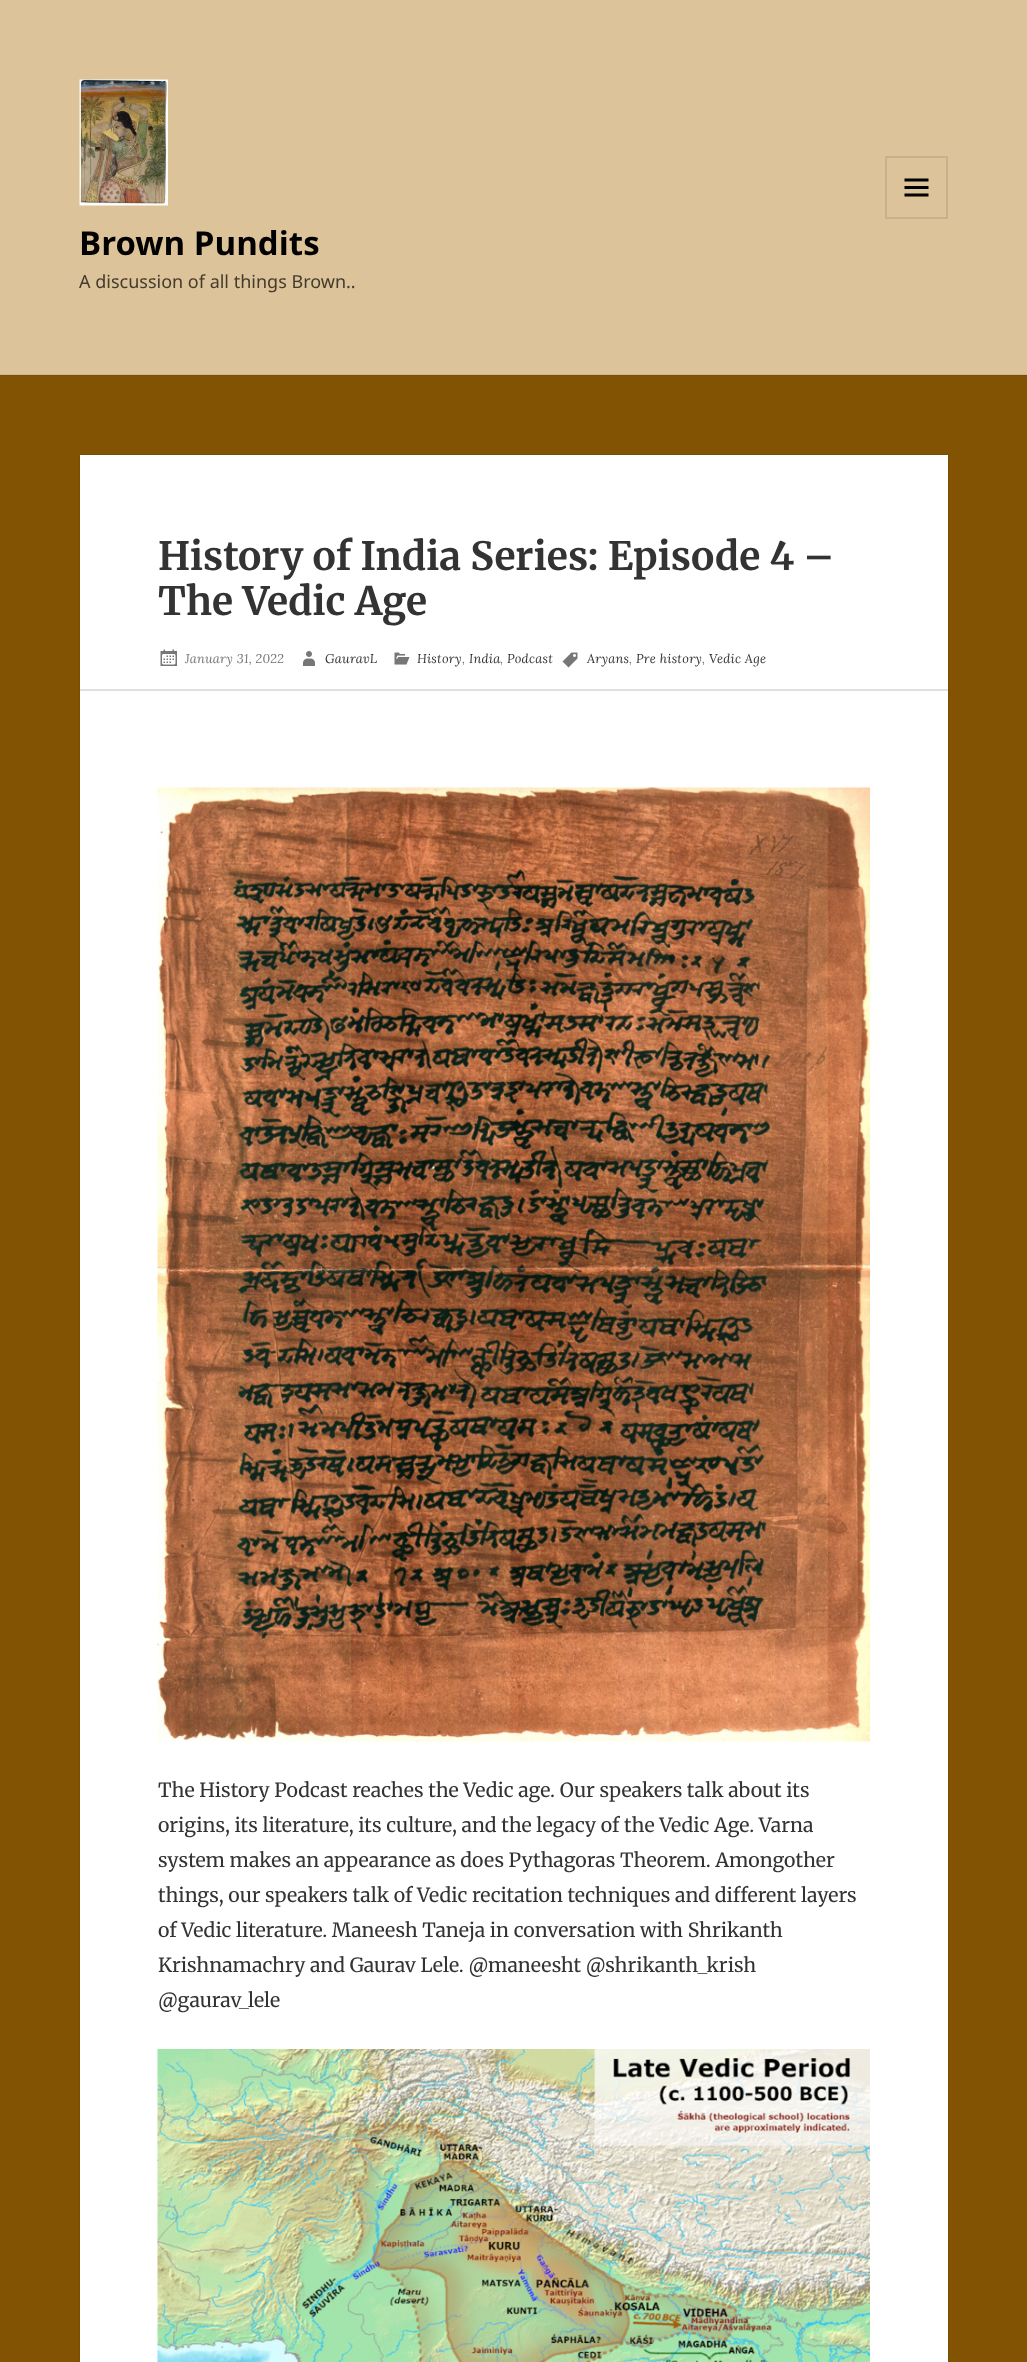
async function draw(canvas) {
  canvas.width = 1027;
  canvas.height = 2362;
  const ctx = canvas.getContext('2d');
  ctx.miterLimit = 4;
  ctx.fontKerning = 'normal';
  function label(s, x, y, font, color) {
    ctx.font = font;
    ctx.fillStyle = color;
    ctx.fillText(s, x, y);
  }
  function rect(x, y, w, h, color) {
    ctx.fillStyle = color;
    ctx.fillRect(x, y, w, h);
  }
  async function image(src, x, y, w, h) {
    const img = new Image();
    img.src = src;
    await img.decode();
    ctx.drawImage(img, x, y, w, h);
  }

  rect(0, 0, 1027, 2362, '#825302');
  rect(0, 375, 1027, 1, '#7a5007');
  rect(0, 0, 1027, 374, '#ddc399');
  rect(0, 374, 1027, 1, '#ccb58f');
  await image('assets/img1.png', 79, 79, 89, 127);
  ctx.strokeStyle = '#c7b08a';
  ctx.lineWidth = 2;
  ctx.strokeRect(886, 157, 61, 61);
  await image('assets/img2.png', 904, 178, 25, 19);
  label('Brown Pundits', 79, 255, 'bold 33px Noto Sans', '#000');
  label('A discussion of all things Brown..', 79, 288, '18px Noto Sans', '#423b2e');
  ctx.fillStyle = '#00000026';
  ctx.filter = 'blur(1px)';
  ctx.beginPath();
  ctx.rect(80, 455, 868, 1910);
  ctx.fill();
  ctx.filter = 'none';
  rect(80, 455, 868, 1907, '#fff');
  rect(80, 689, 868, 2, '#e0e0e0');
  label('History of India Series: Episode 4 –', 158, 570, 'bold 39px Merriweather', '#333');
  label('The Vedic Age', 158, 615, 'bold 39px Merriweather', '#333');
  await image('assets/img3.png', 160, 649, 17, 17);
  ctx.letterSpacing = '0.25px';
  label('January 31, 2022', 185, 663, 'italic 12.75px Lora', '#777');
  await image('assets/img4.png', 303, 651, 12, 15);
  label('GauravL', 325, 663, 'italic 12.75px Lora', '#333');
  await image('assets/img5.png', 394, 652, 16, 13);
  label('History', 417, 663, 'italic 12.75px Lora', '#333');
  label(',', 462, 663, 'italic 12.75px Lora', '#777');
  label('India', 469, 663, 'italic 12.75px Lora', '#333');
  label(',', 500, 663, 'italic 12.75px Lora', '#777');
  label('Podcast', 507, 663, 'italic 12.75px Lora', '#333');
  await image('assets/img6.png', 562, 652, 16, 16);
  label('Aryans', 587, 663, 'italic 12.75px Lora', '#333');
  label(',', 629, 663, 'italic 12.75px Lora', '#777');
  label('Pre history', 636, 663, 'italic 12.75px Lora', '#333');
  label(',', 702, 663, 'italic 12.75px Lora', '#777');
  label('Vedic Age', 709, 663, 'italic 12.75px Lora', '#333');
  await image('assets/img7.png', 157, 787, 713, 955);
  ctx.letterSpacing = '0px';
  label('The History Podcast reaches the Vedic age. Our speakers talk about its', 158, 1797, '19.5px Merriweather', '#333');
  label('origins, its literature, its culture, and the legacy of the Vedic Age. Varna', 158, 1832, '19.5px Merriweather', '#333');
  label('system makes an appearance as does Pythagoras Theorem. Amongother', 158, 1867, '19.5px Merriweather', '#333');
  label('things, our speakers talk of Vedic recitation techniques and different layers', 158, 1902, '19.5px Merriweather', '#333');
  label('of Vedic literature. Maneesh Taneja in conversation with Shrikanth', 158, 1937, '19.5px Merriweather', '#333');
  label('Krishnamachry and Gaurav Lele. @maneesht @shrikanth_krish', 158, 1972, '19.5px Merriweather', '#333');
  label('@gaurav_lele', 158, 2007, '19.5px Merriweather', '#333');
  await image('assets/img8.png', 157, 2049, 713, 313);
}

draw(document.querySelector('canvas'));
